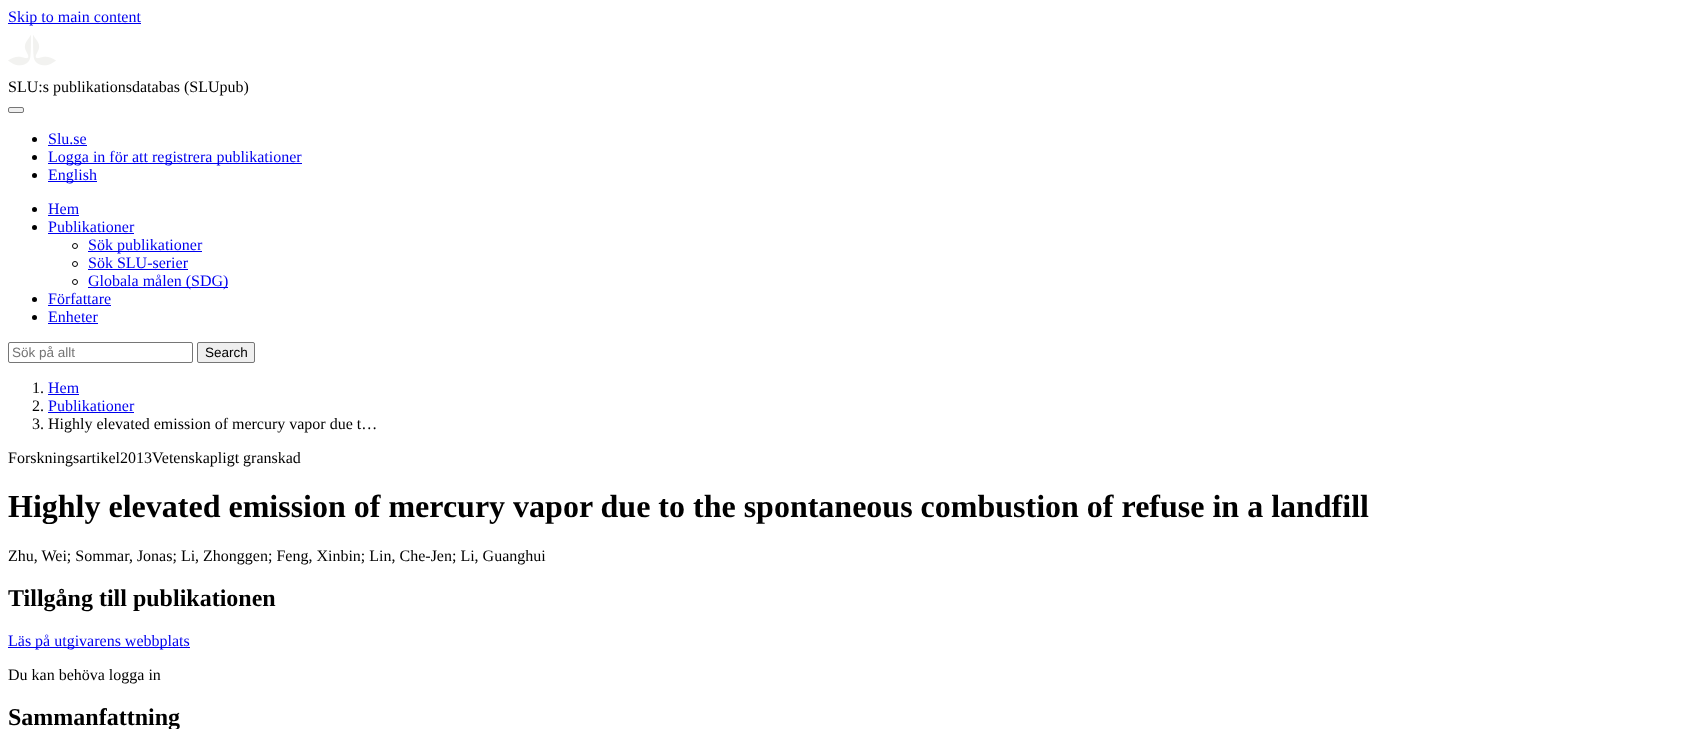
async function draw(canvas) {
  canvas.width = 1708;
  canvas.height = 729;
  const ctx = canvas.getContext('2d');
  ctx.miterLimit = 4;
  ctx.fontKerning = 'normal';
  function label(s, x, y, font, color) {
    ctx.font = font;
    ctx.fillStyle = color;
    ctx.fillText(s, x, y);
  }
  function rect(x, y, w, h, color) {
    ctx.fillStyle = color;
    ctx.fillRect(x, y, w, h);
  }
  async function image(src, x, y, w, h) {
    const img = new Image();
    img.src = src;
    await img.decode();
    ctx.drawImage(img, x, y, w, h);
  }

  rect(0, 0, 1708, 729, '#fff');
  rect(8, 23, 133, 1, '#00e');
  label('Skip to main content', 8, 22, '16px Liberation Serif', '#00e');
  await image('assets/img1.png', 8, 35, 48, 31);
  label('SLU:s publikationsdatabas (SLUpub)', 8, 92, '16px Liberation Serif', '#000');
  ctx.fillStyle = '#efefef';
  ctx.beginPath();
  ctx.roundRect(8.5, 107.5, 15, 5, 1.5);
  ctx.fill();
  ctx.strokeStyle = '#767676';
  ctx.stroke();
  ctx.fillStyle = '#000';
  ctx.beginPath();
  ctx.arc(34.5, 139.5, 2.5, 0, 2 * Math.PI);
  ctx.fill();
  label('Slu.se', 48, 144, '16px Liberation Serif', '#00e');
  rect(48, 145, 39, 1, '#00e');
  ctx.fillStyle = '#000';
  ctx.beginPath();
  ctx.arc(34.5, 157.5, 2.5, 0, 2 * Math.PI);
  ctx.fill();
  rect(48, 163, 254, 1, '#00e');
  label('Logga in för att registrera publikationer', 48, 162, '16px Liberation Serif', '#00e');
  ctx.fillStyle = '#000';
  ctx.beginPath();
  ctx.arc(34.5, 175.5, 2.5, 0, 2 * Math.PI);
  ctx.fill();
  rect(48, 181, 49, 1, '#00e');
  label('English', 48, 180, '16px Liberation Serif', '#00e');
  ctx.fillStyle = '#000';
  ctx.beginPath();
  ctx.arc(34.5, 209.5, 2.5, 0, 2 * Math.PI);
  ctx.fill();
  label('Hem', 48, 214, '16px Liberation Serif', '#00e');
  rect(48, 215, 31, 1, '#00e');
  ctx.fillStyle = '#000';
  ctx.beginPath();
  ctx.arc(34.5, 227.5, 2.5, 0, 2 * Math.PI);
  ctx.fill();
  label('Publikationer', 48, 232, '16px Liberation Serif', '#00e');
  rect(48, 233, 86, 1, '#00e');
  ctx.beginPath();
  ctx.arc(75, 246, 2.5, 0, 2 * Math.PI);
  ctx.strokeStyle = '#000';
  ctx.stroke();
  rect(88, 251, 114, 1, '#00e');
  label('Sök publikationer', 88, 250, '16px Liberation Serif', '#00e');
  ctx.beginPath();
  ctx.arc(75, 264, 2.5, 0, 2 * Math.PI);
  ctx.stroke();
  label('Sök SLU-serier', 88, 268, '16px Liberation Serif', '#00e');
  rect(88, 269, 100, 1, '#00e');
  ctx.beginPath();
  ctx.arc(75, 282, 2.5, 0, 2 * Math.PI);
  ctx.stroke();
  rect(88, 287, 140, 1, '#00e');
  label('Globala målen (SDG)', 88, 286, '16px Liberation Serif', '#00e');
  ctx.fillStyle = '#000';
  ctx.beginPath();
  ctx.arc(34.5, 299.5, 2.5, 0, 2 * Math.PI);
  ctx.fill();
  label('Författare', 48, 304, '16px Liberation Serif', '#00e');
  rect(48, 305, 63, 1, '#00e');
  ctx.fillStyle = '#000';
  ctx.beginPath();
  ctx.arc(34.5, 317.5, 2.5, 0, 2 * Math.PI);
  ctx.fill();
  label('Enheter', 48, 322, '16px Liberation Serif', '#00e');
  rect(48, 323, 50, 1, '#00e');
  ctx.beginPath();
  ctx.roundRect(8.5, 342.5, 184, 20, 1.5);
  ctx.strokeStyle = '#767676';
  ctx.stroke();
  label('Sök på allt', 12, 357, '13.5px Liberation Sans', '#757575');
  ctx.fillStyle = '#efefef';
  ctx.beginPath();
  ctx.roundRect(197.5, 342.5, 57, 20, 1.5);
  ctx.fill();
  ctx.stroke();
  label('Search', 205, 357, '13.5px Liberation Sans', '#000');
  label('1.', 32, 393, '16px Liberation Serif', '#000');
  label('Hem', 48, 393, '16px Liberation Serif', '#00e');
  rect(48, 394, 31, 1, '#00e');
  label('2.', 32, 411, '16px Liberation Serif', '#000');
  label('Publikationer', 48, 411, '16px Liberation Serif', '#00e');
  rect(48, 412, 86, 1, '#00e');
  label('3. Highly elevated emission of mercury vapor due t…', 32, 429, '16px Liberation Serif', '#000');
  label('Forskningsartikel2013Vetenskapligt granskad', 8, 463, '16px Liberation Serif', '#000');
  label('Highly elevated emission of mercury vapor due to the spontaneous combustion of refuse in a landfill', 8, 517, 'bold 32px Liberation Serif', '#000');
  label('Zhu, Wei; Sommar, Jonas; Li, Zhonggen; Feng, Xinbin; Lin, Che-Jen; Li, Guanghui', 8, 561, '16px Liberation Serif', '#000');
  label('Tillgång till publikationen', 8, 606, 'bold 24px Liberation Serif', '#000');
  rect(8, 647, 182, 1, '#00e');
  label('Läs på utgivarens webbplats', 8, 646, '16px Liberation Serif', '#00e');
  label('Du kan behöva logga in', 8, 680, '16px Liberation Serif', '#000');
  label('Sammanfattning', 8, 725, 'bold 24px Liberation Serif', '#000');
}

draw(document.querySelector('canvas'));
